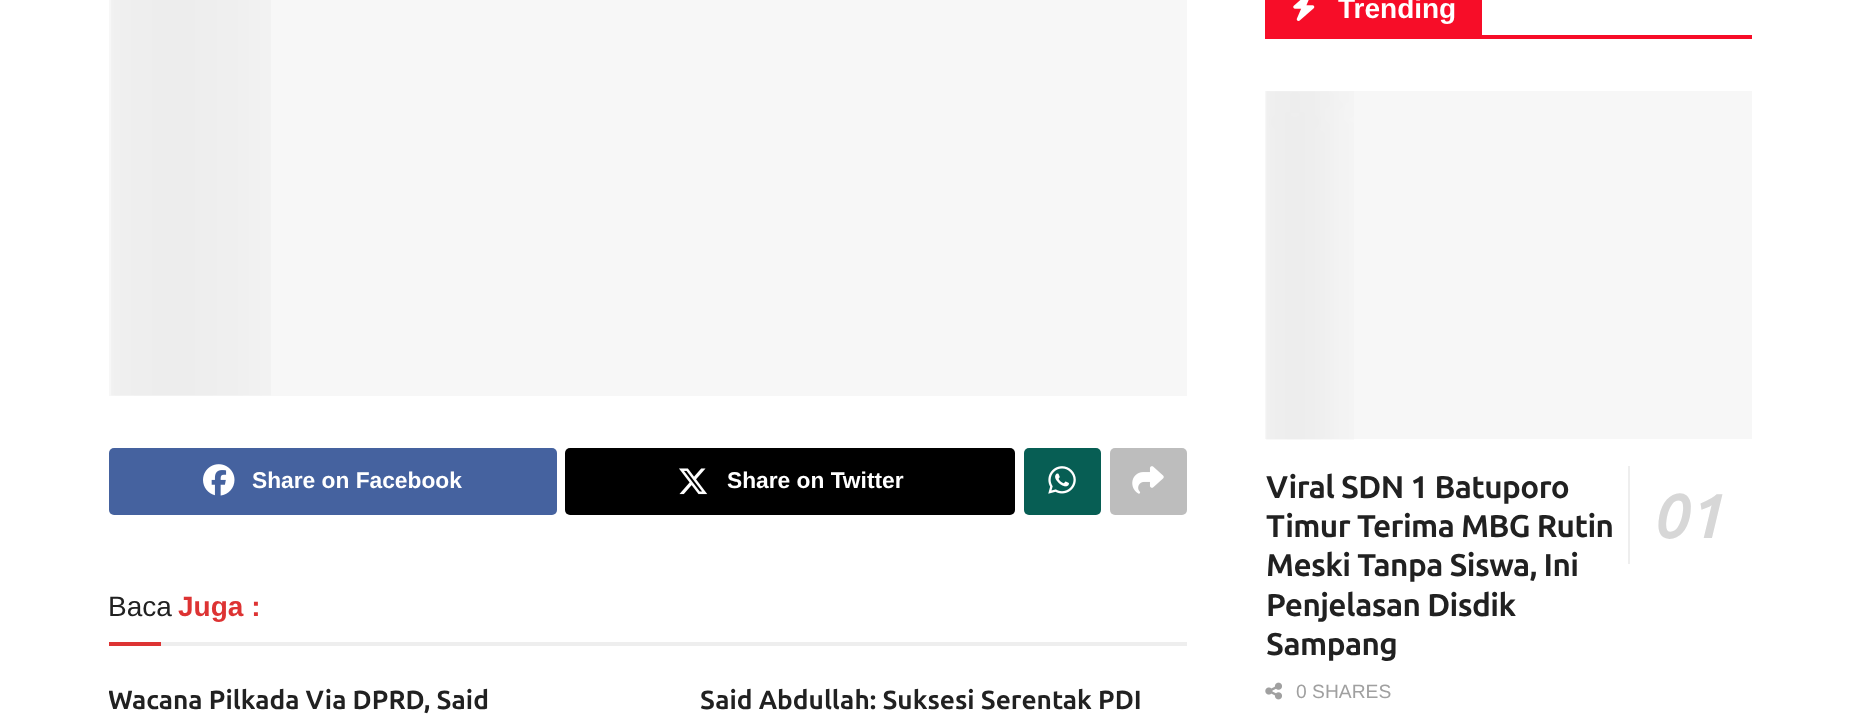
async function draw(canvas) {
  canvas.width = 1859;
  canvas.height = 721;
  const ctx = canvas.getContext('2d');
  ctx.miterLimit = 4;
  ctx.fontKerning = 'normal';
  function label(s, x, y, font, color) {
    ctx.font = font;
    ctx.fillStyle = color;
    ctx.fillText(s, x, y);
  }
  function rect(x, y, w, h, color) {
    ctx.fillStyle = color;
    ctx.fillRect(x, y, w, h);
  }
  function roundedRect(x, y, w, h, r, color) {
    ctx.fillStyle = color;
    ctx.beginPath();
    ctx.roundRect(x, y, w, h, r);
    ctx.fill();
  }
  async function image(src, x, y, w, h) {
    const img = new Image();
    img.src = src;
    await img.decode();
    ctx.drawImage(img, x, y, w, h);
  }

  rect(0, 0, 1859, 721, '#fff');
  rect(109, 0, 1078, 396, '#f7f7f7');
  await image('assets/img1.png', 111, 0, 160, 396);
  roundedRect(109, 448, 448, 67, 5, '#45629f');
  await image('assets/img2.png', 203, 464, 32, 32);
  label('Share on Facebook', 252, 488, 'bold 22.75px Liberation Sans', '#fff');
  roundedRect(565, 448, 450, 67, 5, '#000');
  await image('assets/img3.png', 679, 468, 29, 27);
  label('Share on Twitter', 727, 488, 'bold 22.75px Liberation Sans', '#fff');
  roundedRect(1024, 448, 77, 67, 5, '#075e54');
  await image('assets/img4.png', 1048, 466, 28, 28);
  roundedRect(1110, 448, 77, 67, 5, '#bdbdbd');
  await image('assets/img5.png', 1132, 466, 32, 28);
  rect(161, 642, 1026, 4, '#eee');
  label('Baca', 108, 616, '28px Liberation Sans', '#212121');
  label('Juga :', 178, 616, 'bold 28px Liberation Sans', '#d33');
  rect(109, 642, 52, 4, '#d33');
  ctx.save();
  ctx.beginPath();
  ctx.rect(109, 681, 486, 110);
  ctx.clip();
  label('Wacana Pilkada Via DPRD, Said', 108, 709, 'bold 26.25px Ubuntu', '#212121');
  ctx.restore();
  label('Said Abdullah: Suksesi Serentak PDI', 700, 709, 'bold 26.25px Ubuntu', '#212121');
  rect(1482, 35, 270, 4, '#f70d28');
  rect(1265, 0, 217, 39, '#f70d28');
  await image('assets/img6.png', 1293, 0, 22, 21);
  label('Trending', 1338, 18, 'bold 28px Liberation Sans', '#fff');
  rect(1265, 91, 487, 348, '#f7f7f7');
  await image('assets/img7.png', 1266, 91, 88, 349);
  ctx.letterSpacing = '-0.6px';
  label('Viral SDN 1 Batuporo', 1266, 498, 'bold 31.5px Ubuntu', '#212121');
  label('Timur Terima MBG Rutin', 1266, 537, 'bold 31.5px Ubuntu', '#212121');
  rect(1628, 466, 2, 98, '#eee');
  label('01', 1656, 538, 'italic bold 63px Ubuntu', '#d7d7d7');
  label('Meski Tanpa Siswa, Ini', 1266, 576, 'bold 31.5px Ubuntu', '#212121');
  label('Penjelasan Disdik', 1266, 616, 'bold 31.5px Ubuntu', '#212121');
  label('Sampang', 1266, 655, 'bold 31.5px Ubuntu', '#212121');
  await image('assets/img8.png', 1265, 682, 17, 18);
  ctx.letterSpacing = '0px';
  label('0 SHARES', 1296, 698, '19.25px Liberation Sans', '#a0a0a0');
}

draw(document.querySelector('canvas'));
